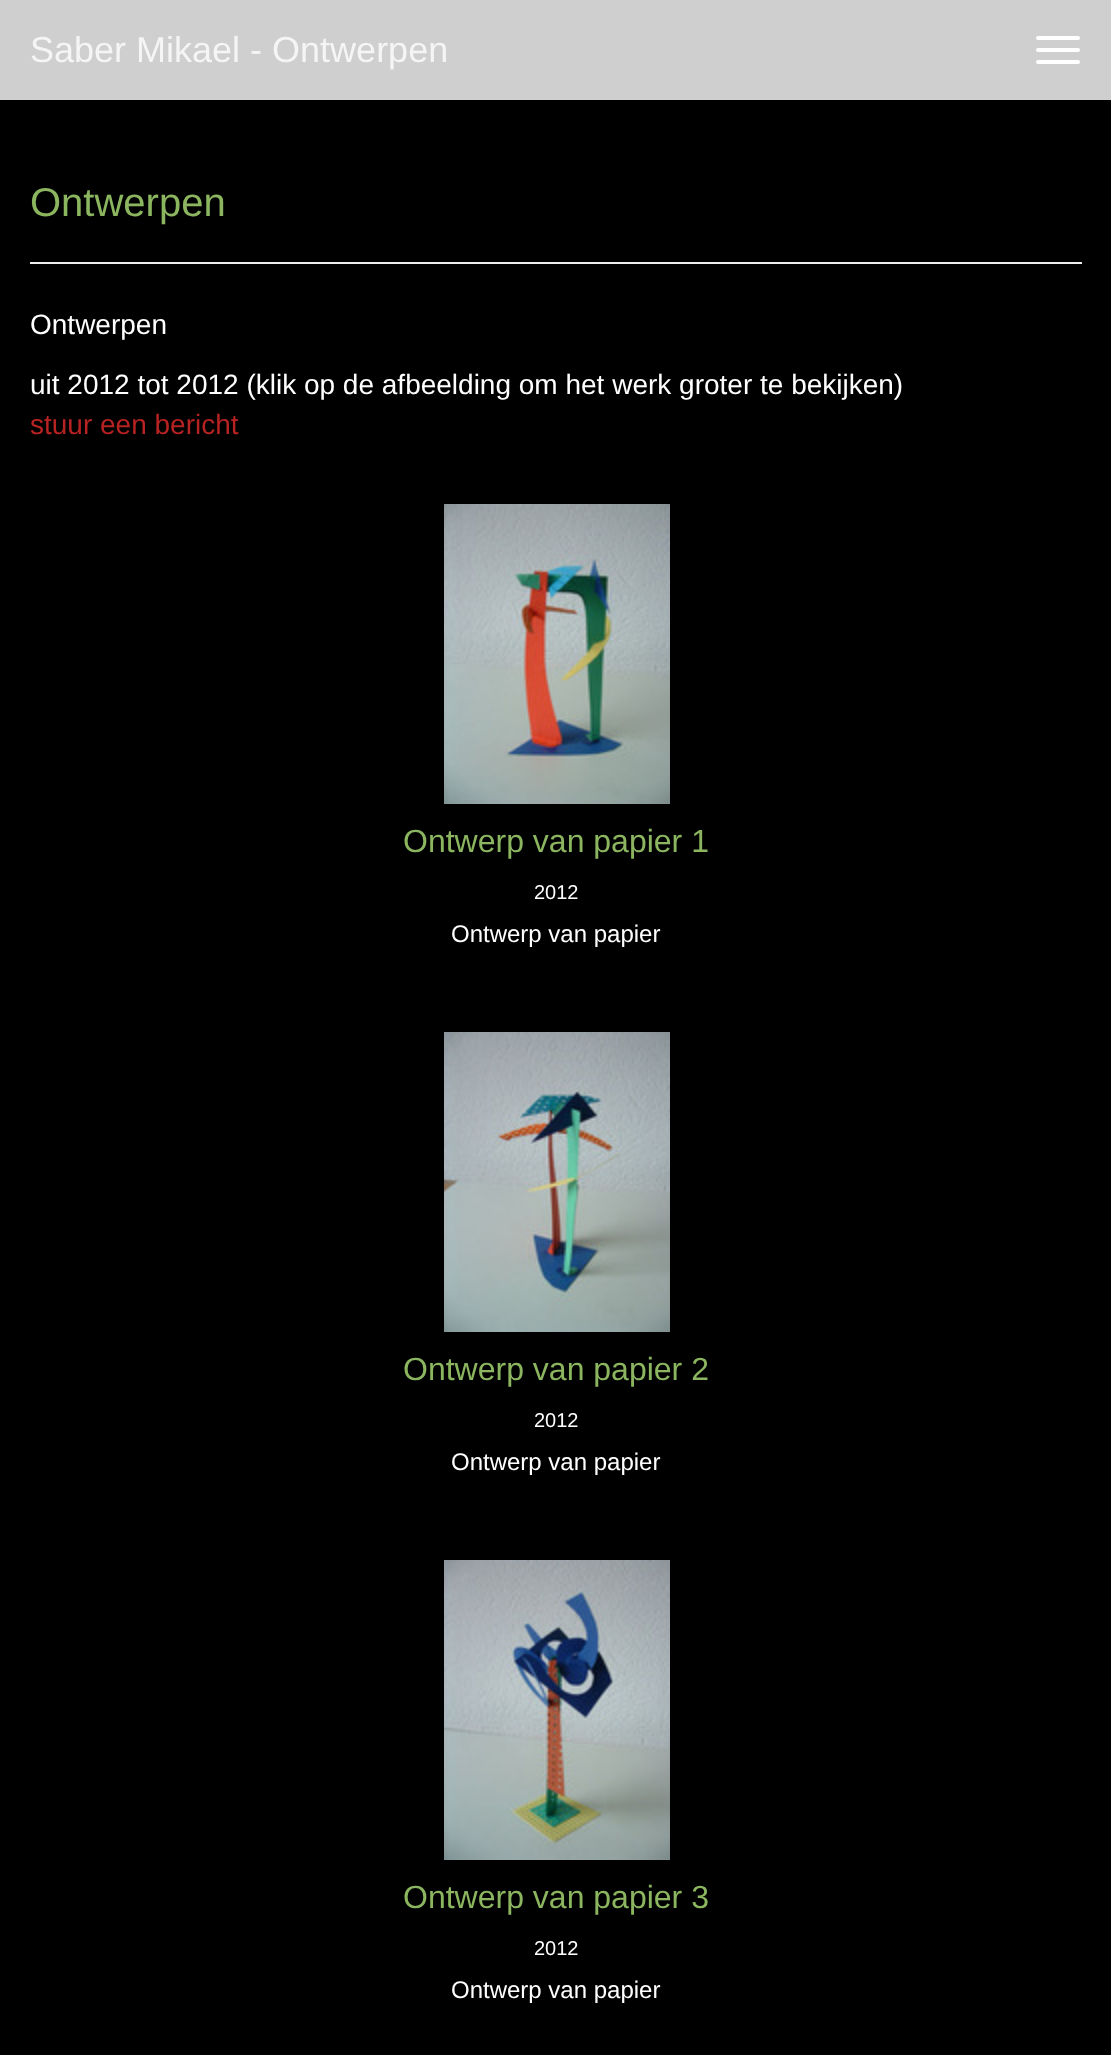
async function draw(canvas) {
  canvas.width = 1111;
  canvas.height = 2055;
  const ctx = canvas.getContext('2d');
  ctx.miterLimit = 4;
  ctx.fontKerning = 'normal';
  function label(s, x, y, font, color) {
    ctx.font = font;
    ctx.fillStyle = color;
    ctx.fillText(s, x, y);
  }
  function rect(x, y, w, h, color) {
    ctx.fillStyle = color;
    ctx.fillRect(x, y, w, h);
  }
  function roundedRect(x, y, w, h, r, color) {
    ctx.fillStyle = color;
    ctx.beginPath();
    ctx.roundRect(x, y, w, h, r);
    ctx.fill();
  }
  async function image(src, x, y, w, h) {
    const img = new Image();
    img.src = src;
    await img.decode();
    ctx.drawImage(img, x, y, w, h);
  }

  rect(0, 0, 1111, 2055, '#000');
  rect(0, 0, 1111, 100, '#cfcfcf');
  label('Saber Mikael - Ontwerpen', 30, 62, '36px Liberation Sans', '#f5f5f5');
  roundedRect(1036, 36, 44, 4, 2, '#fff');
  roundedRect(1036, 48, 44, 4, 2, '#fff');
  roundedRect(1036, 60, 44, 4, 2, '#fff');
  rect(30, 262, 1052, 2, '#eee');
  label('Ontwerpen', 30, 216, '40px Liberation Sans', '#8bb55f');
  label('Ontwerpen', 30, 334, '28px Liberation Sans', '#fff');
  label('uit 2012 tot 2012 (klik op de afbeelding om het werk groter te bekijken)', 30, 394, '28px Liberation Sans', '#fff');
  label('stuur een bericht', 30, 434, '28px Liberation Sans', '#b72222');
  await image('assets/img1.png', 444, 504, 226, 300);
  label('Ontwerp van papier 1', 403, 852, '32px Liberation Sans', '#8bb55f');
  label('2012', 534, 899, '20px Liberation Sans', '#fff');
  label('Ontwerp van papier', 451, 942, '24px Liberation Sans', '#fff');
  await image('assets/img2.png', 444, 1032, 226, 300);
  label('Ontwerp van papier 2', 403, 1380, '32px Liberation Sans', '#8bb55f');
  label('2012', 534, 1427, '20px Liberation Sans', '#fff');
  label('Ontwerp van papier', 451, 1470, '24px Liberation Sans', '#fff');
  await image('assets/img3.png', 444, 1560, 226, 300);
  label('Ontwerp van papier 3', 403, 1908, '32px Liberation Sans', '#8bb55f');
  label('2012', 534, 1955, '20px Liberation Sans', '#fff');
  label('Ontwerp van papier', 451, 1998, '24px Liberation Sans', '#fff');
}

draw(document.querySelector('canvas'));
